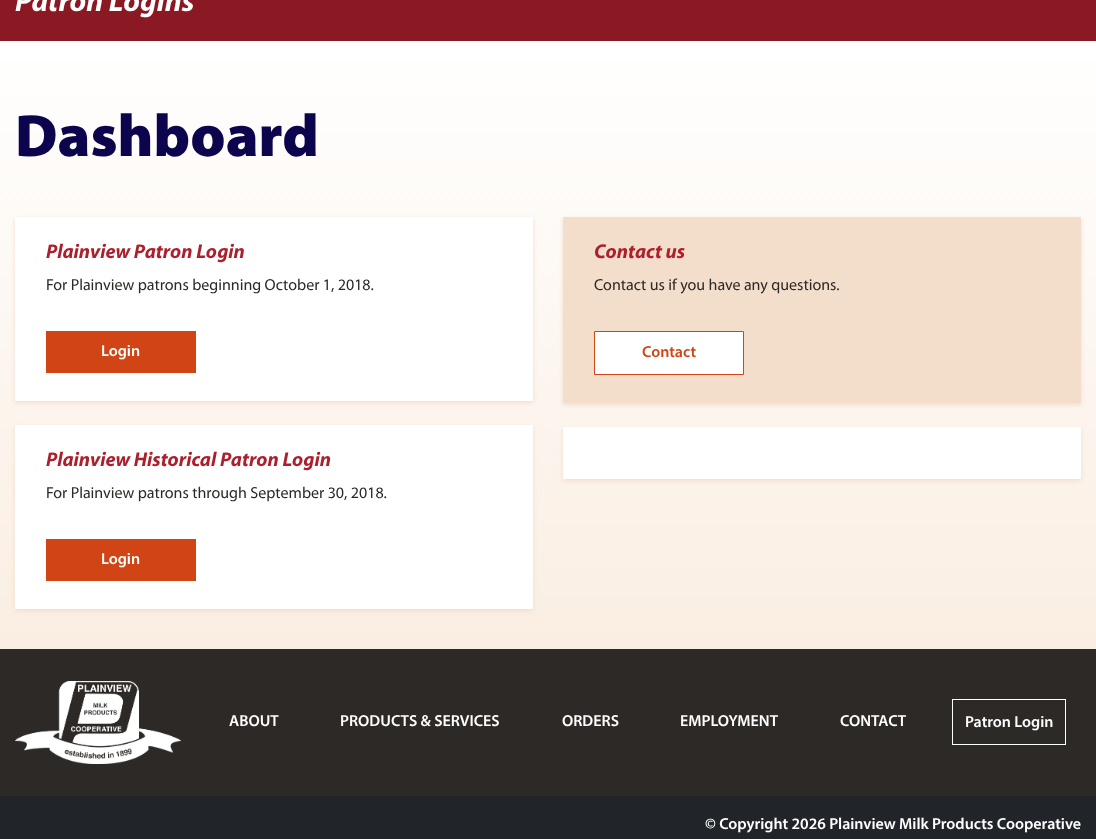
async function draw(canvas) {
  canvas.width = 1096;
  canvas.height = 839;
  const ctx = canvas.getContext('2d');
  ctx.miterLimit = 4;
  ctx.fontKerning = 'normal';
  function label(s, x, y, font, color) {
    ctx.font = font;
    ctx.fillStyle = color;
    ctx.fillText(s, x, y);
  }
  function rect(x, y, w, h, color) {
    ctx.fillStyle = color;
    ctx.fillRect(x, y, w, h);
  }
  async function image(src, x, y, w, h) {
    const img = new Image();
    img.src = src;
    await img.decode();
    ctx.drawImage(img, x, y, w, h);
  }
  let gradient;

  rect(0, 0, 1096, 839, '#8a1924');
  label('Patron Logins', 15, 11, 'italic bold 30px Myriad', '#fff');
  gradient = ctx.createLinearGradient(548, 41, 548, 649);
  gradient.addColorStop(0, '#fff');
  gradient.addColorStop(1, '#faeee2');
  ctx.fillStyle = gradient;
  ctx.fillRect(0, 41, 1096, 608);
  label('Dashboard', 15, 156, '900 60px Myriad', '#0c044c');
  ctx.fillStyle = '#f2decb';
  ctx.filter = 'blur(2px)';
  ctx.beginPath();
  ctx.rect(15, 219, 518, 184);
  ctx.fill();
  ctx.filter = 'none';
  rect(15, 217, 518, 184, '#fff');
  label('Plainview Patron Login', 46, 258, 'italic bold 20px Myriad', '#ac1f2d');
  label('For Plainview patrons beginning October 1, 2018.', 46, 290, '16px Myriad', '#2d2926');
  rect(46, 331, 150, 42, '#d14415');
  label('Login', 101, 356, '600 16px Myriad', '#fff');
  ctx.fillStyle = '#f2decb';
  ctx.filter = 'blur(2px)';
  ctx.beginPath();
  ctx.rect(15, 427, 518, 184);
  ctx.fill();
  ctx.filter = 'none';
  rect(15, 425, 518, 184, '#fff');
  label('Plainview Historical Patron Login', 46, 466, 'italic bold 20px Myriad', '#ac1f2d');
  label('For Plainview patrons through September 30, 2018.', 46, 498, '16px Myriad', '#2d2926');
  rect(46, 539, 150, 42, '#d14415');
  label('Login', 101, 564, '600 16px Myriad', '#fff');
  ctx.fillStyle = '#f2decb';
  ctx.filter = 'blur(2px)';
  ctx.beginPath();
  ctx.rect(563, 219, 518, 186);
  ctx.fill();
  ctx.filter = 'none';
  rect(563, 217, 518, 186, '#f2decb');
  label('Contact us', 594, 258, 'italic bold 20px Myriad', '#ac1f2d');
  label('Contact us if you have any questions.', 594, 290, '16px Myriad', '#2d2926');
  ctx.fillStyle = '#fff';
  ctx.beginPath();
  ctx.rect(594.5, 331.5, 149, 43);
  ctx.fill();
  ctx.strokeStyle = '#d14415';
  ctx.stroke();
  label('Contact', 642, 357, '600 16px Myriad', '#d14415');
  ctx.fillStyle = '#f2decb';
  ctx.filter = 'blur(2px)';
  ctx.beginPath();
  ctx.rect(563, 429, 518, 52);
  ctx.fill();
  ctx.filter = 'none';
  rect(563, 427, 518, 52, '#fff');
  rect(0, 649, 1096, 147, '#2d2926');
  await image('assets/img1.png', 15, 681, 166, 83);
  label('ABOUT', 229, 726, '600 16px Myriad', '#fff');
  label('PRODUCTS & SERVICES', 340, 726, '600 16px Myriad', '#fff');
  label('ORDERS', 562, 726, '600 16px Myriad', '#fff');
  label('EMPLOYMENT', 680, 726, '600 16px Myriad', '#fff');
  label('CONTACT', 840, 726, '600 16px Myriad', '#fff');
  ctx.strokeStyle = '#fff';
  ctx.strokeRect(952.5, 699.5, 113, 45);
  label('Patron Login', 965, 727, '600 16px Myriad', '#fff');
  rect(0, 796, 1096, 43, '#212529');
  label('© Copyright 2026 Plainview Milk Products Cooperative', 705, 829, '600 16px Myriad', '#fff');
}

draw(document.querySelector('canvas'));
